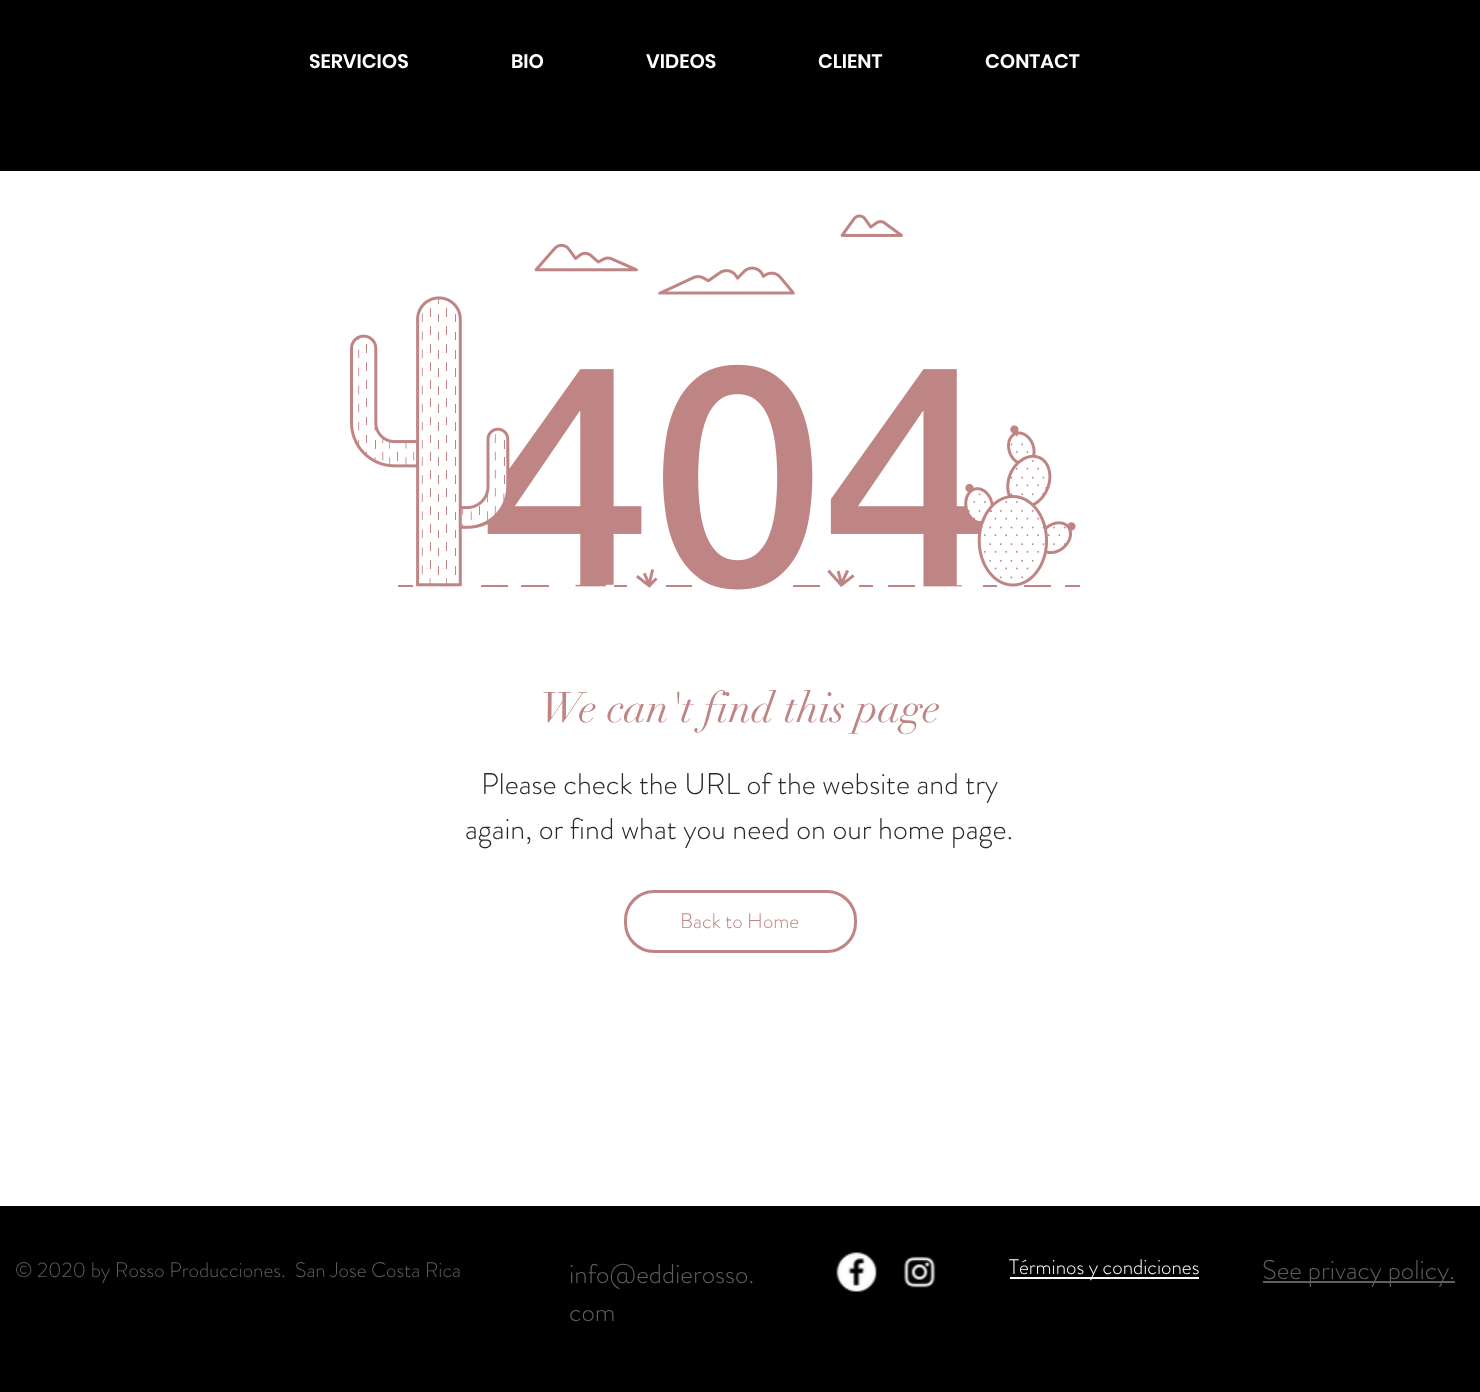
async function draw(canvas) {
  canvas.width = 1480;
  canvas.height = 1392;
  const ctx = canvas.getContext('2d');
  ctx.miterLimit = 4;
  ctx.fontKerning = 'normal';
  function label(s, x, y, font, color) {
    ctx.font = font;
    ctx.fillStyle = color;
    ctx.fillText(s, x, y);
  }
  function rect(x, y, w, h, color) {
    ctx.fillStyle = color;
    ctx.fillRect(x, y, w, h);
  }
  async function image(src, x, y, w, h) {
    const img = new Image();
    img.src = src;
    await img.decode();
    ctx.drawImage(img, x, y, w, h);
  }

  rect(0, 0, 1480, 1392, '#fff');
  rect(0, 0, 1480, 171, '#000');
  label('SERVICIOS', 309, 68, '600 19.5px Poppins', '#fff');
  label('BIO', 511, 68, '600 19.5px Poppins', '#fff');
  label('VIDEOS', 646, 68, '600 19.5px Poppins', '#fff');
  label('CLIENT', 818, 68, '600 19.5px Poppins', '#fff');
  label('CONTACT', 985, 68, '600 19.5px Poppins', '#fff');
  await image('assets/img1.png', 350, 214, 730, 376);
  label('We can\'t find this page', 540, 722, '42px didot', '#bf8484');
  label('Please check the URL of the website and try', 481, 794, '300 30px "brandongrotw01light"', '#292929');
  label('again, or find what you need on our home page.', 465, 839, '300 30px "brandongrotw01light"', '#292929');
  ctx.beginPath();
  ctx.roundRect(625.5, 891.5, 230, 60, 28.5);
  ctx.strokeStyle = '#bf8484';
  ctx.lineWidth = 3;
  ctx.stroke();
  label('Back to Home', 680, 928, '300 21px "brandongrotw01light"', '#bf8484');
  rect(0, 1206, 1480, 186, '#000');
  label('© 2020 by Rosso Producciones.', 15, 1277, '300 21px "brandongrotw01light"', '#605e5e');
  label('San Jose Costa Rica', 295, 1277, '300 21px "brandongrotw01light"', '#605e5e');
  label('info@eddierosso.', 569, 1283, '300 27px "brandongrotw01light"', '#605e5e');
  label('com', 569, 1321, '300 27px "brandongrotw01light"', '#605e5e');
  await image('assets/img2.png', 836, 1252, 41, 40);
  await image('assets/img3.png', 903, 1256, 33, 32);
  rect(1010, 1277, 189, 2, '#fff');
  label('Términos y condiciones', 1009, 1274, '300 21px "brandongrotw01light"', '#fff');
  rect(1263, 1281, 192, 2, '#605e5e');
  label('See privacy policy.', 1262, 1279, '300 27px "brandongrotw01light"', '#605e5e');
}

draw(document.querySelector('canvas'));
